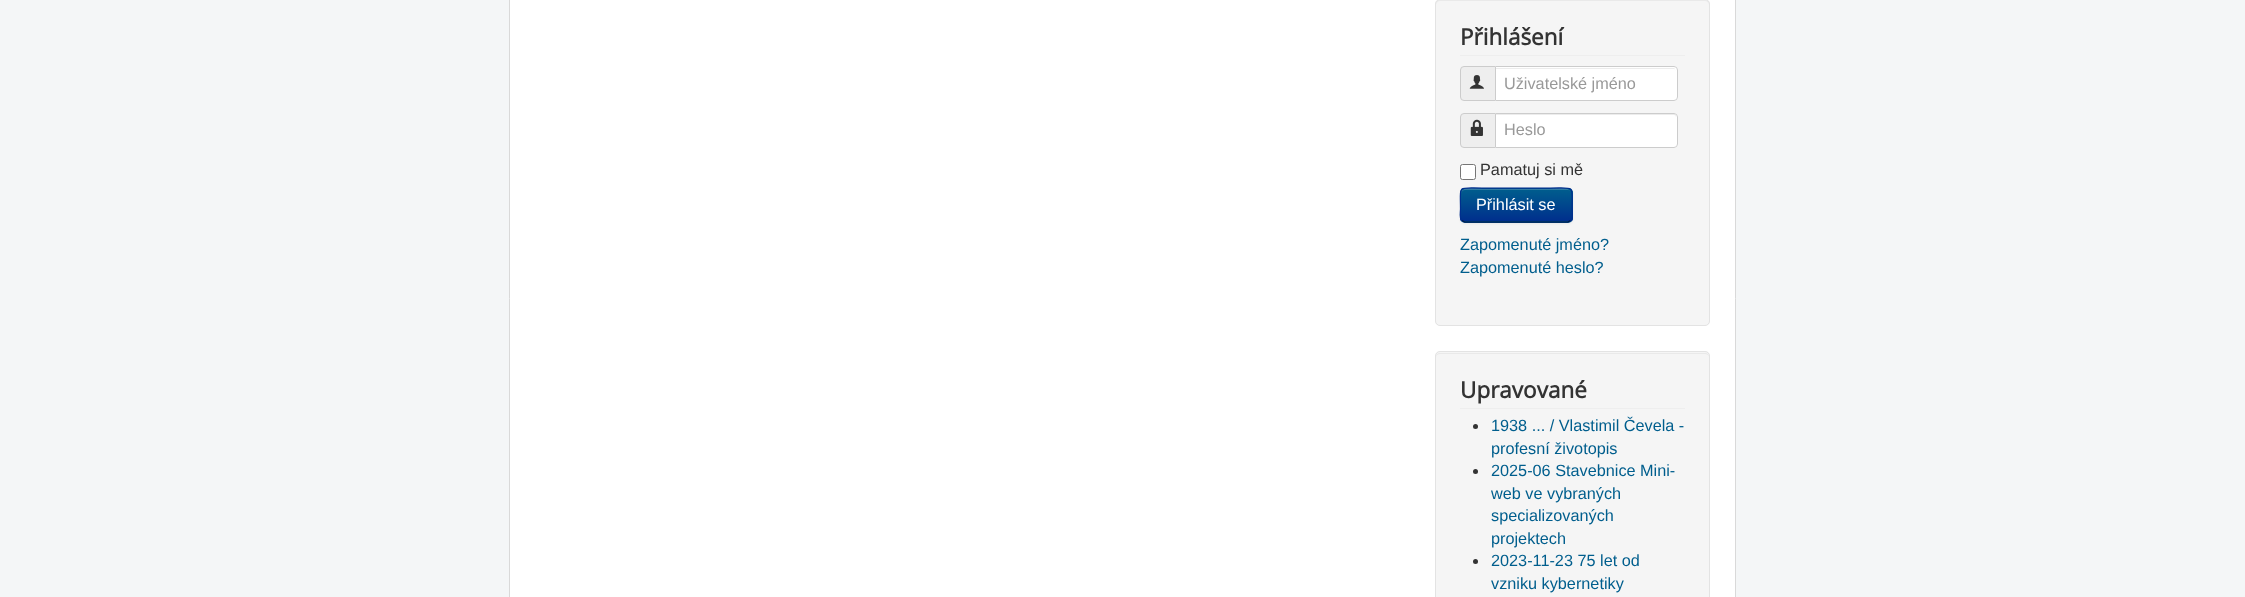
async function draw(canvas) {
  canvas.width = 2245;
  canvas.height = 597;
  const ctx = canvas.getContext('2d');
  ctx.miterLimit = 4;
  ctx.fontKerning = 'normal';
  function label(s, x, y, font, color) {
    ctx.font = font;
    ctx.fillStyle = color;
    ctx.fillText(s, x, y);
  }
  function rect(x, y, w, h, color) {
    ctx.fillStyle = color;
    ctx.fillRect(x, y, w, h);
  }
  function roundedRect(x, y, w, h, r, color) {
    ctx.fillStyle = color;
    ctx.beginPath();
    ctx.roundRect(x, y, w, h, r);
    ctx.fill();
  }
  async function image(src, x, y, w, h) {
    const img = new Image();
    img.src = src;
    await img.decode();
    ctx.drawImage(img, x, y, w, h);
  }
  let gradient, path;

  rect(0, 0, 2245, 597, '#f4f6f7');
  ctx.fillStyle = '#fff';
  ctx.beginPath();
  ctx.rect(509.5, -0.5, 1226, 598);
  ctx.fill();
  ctx.strokeStyle = '#d9d9d9';
  ctx.stroke();
  roundedRect(1435, -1, 275, 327, 5, '#f5f5f5');
  ctx.fillStyle = '#e9e9e9';
  path = new Path2D('M1440 1H1705C1707 1 1709 3 1709 5C1709 2 1708 0 1705 0H1440C1437 0 1436 2 1436 5C1436 3 1438 1 1440 1Z');
  ctx.fill(path);
  ctx.beginPath();
  ctx.roundRect(1435.5, -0.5, 274, 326, 4.5);
  ctx.strokeStyle = '#e3e3e3';
  ctx.stroke();
  rect(1460, 55, 225, 1, '#eee');
  label('Přihlášení', 1460, 45, 'bold 22.5px Open Sans', '#333');
  ctx.fillStyle = '#eee';
  ctx.beginPath();
  ctx.roundRect(1460.5, 66.5, 35, 34, [3.5, 0, 0, 3.5]);
  ctx.fill();
  ctx.strokeStyle = '#ccc';
  ctx.stroke();
  await image('assets/img1.png', 1469, 75, 15, 14);
  ctx.fillStyle = '#fff';
  ctx.beginPath();
  ctx.roundRect(1495, 66, 183, 35, [0, 4, 4, 0]);
  ctx.fill();
  ctx.fillStyle = '#ececec';
  path = new Path2D('M1496 69H1674C1675 69 1676 70 1676 71L1675 69L1674 68H1496Z');
  ctx.fill(path);
  ctx.beginPath();
  ctx.roundRect(1495.5, 66.5, 182, 34, [0, 3.5, 3.5, 0]);
  ctx.stroke();
  label('Uživatelské jméno', 1504, 89, '16.25px Liberation Sans', '#999');
  ctx.fillStyle = '#eee';
  ctx.beginPath();
  ctx.roundRect(1460.5, 113.5, 35, 34, [3.5, 0, 0, 3.5]);
  ctx.fill();
  ctx.stroke();
  await image('assets/img2.png', 1470, 119, 13, 17);
  ctx.fillStyle = '#fff';
  ctx.beginPath();
  ctx.roundRect(1495, 113, 183, 35, [0, 4, 4, 0]);
  ctx.fill();
  ctx.fillStyle = '#ececec';
  path = new Path2D('M1496 115H1674C1675 115 1676 116 1676 118C1676 116 1676 114 1674 114H1496Z');
  ctx.fill(path);
  ctx.beginPath();
  ctx.roundRect(1495.5, 113.5, 182, 34, [0, 3.5, 3.5, 0]);
  ctx.stroke();
  label('Heslo', 1504, 135, '16.25px Liberation Sans', '#999');
  ctx.fillStyle = '#fff';
  ctx.beginPath();
  ctx.roundRect(1460.5, 164.5, 15, 15, 2);
  ctx.fill();
  ctx.strokeStyle = '#767676';
  ctx.stroke();
  label('Pamatuj si mě', 1480, 175, '16.25px Liberation Sans', '#333');
  ctx.fillStyle = '#0000000d';
  ctx.filter = 'blur(1px)';
  ctx.beginPath();
  ctx.roundRect(1460, 189, 113, 35, 5);
  ctx.fill();
  ctx.filter = 'none';
  roundedRect(1460, 188, 113, 35, 5, '#004b8d');
  ctx.save();
  ctx.beginPath();
  ctx.roundRect(1460, 188, 113, 35, 5);
  ctx.clip();
  gradient = ctx.createLinearGradient(1516, 189, 1516, 221);
  gradient.addColorStop(0, '#005e8d');
  gradient.addColorStop(1, '#002f8d');
  ctx.fillStyle = gradient;
  ctx.fillRect(1460, 189, 113, 32);
  ctx.restore();
  ctx.fillStyle = '#ffffff33';
  path = new Path2D('M1465 190H1568C1570 190 1571 192 1571 194C1571 185 1554 189 1550 189H1482C1478 189 1461 185 1461 194C1461 192 1463 190 1465 190Z');
  ctx.fill(path);
  path = new Path2D('M1570.5 220.5L1568 222H1464.5L1462 220.5');
  ctx.strokeStyle = '#001641';
  ctx.lineWidth = 1.2;
  ctx.stroke(path);
  path = new Path2D('M1462 220.5C1459 218 1460.5 212.5 1460.5 209C1460.5 184.5 1456.5 188 1482 188H1550.5C1576 188 1572 184.5 1572 209C1572 212.5 1573.5 218 1570.5 220.5');
  ctx.strokeStyle = '#002f8d';
  ctx.stroke(path);
  label('Přihlásit se', 1476, 210, '16.25px Liberation Sans', '#fff');
  label('Zapomenuté jméno?', 1460, 250, '16.25px Liberation Sans', '#005e8d');
  label('Zapomenuté heslo?', 1460, 273, '16.25px Liberation Sans', '#005e8d');
  roundedRect(1435, 351, 275, 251, 5, '#f5f5f5');
  ctx.fillStyle = '#e9e9e9';
  path = new Path2D('M1440 354H1705C1707 354 1709 355 1709 358C1709 355 1708 353 1705 353H1440C1437 353 1436 355 1436 358C1436 355 1438 354 1440 354Z');
  ctx.fill(path);
  ctx.beginPath();
  ctx.roundRect(1435.5, 351.5, 274, 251, 4.5);
  ctx.strokeStyle = '#e3e3e3';
  ctx.lineWidth = 1;
  ctx.stroke();
  rect(1460, 408, 225, 1, '#eee');
  label('Upravované', 1460, 398, 'bold 22.5px Open Sans', '#333');
  ctx.beginPath();
  ctx.arc(1475.5, 426.5, 2.5, 0, 2 * Math.PI);
  ctx.fill();
  label('1938 ... / Vlastimil Čevela -', 1491, 431, '16.25px Liberation Sans', '#005e8d');
  label('profesní životopis', 1491, 454, '16.25px Liberation Sans', '#005e8d');
  ctx.fillStyle = '#333';
  ctx.beginPath();
  ctx.arc(1475.5, 471.5, 2.5, 0, 2 * Math.PI);
  ctx.fill();
  label('2025-06 Stavebnice Mini-', 1491, 476, '16.25px Liberation Sans', '#005e8d');
  label('web ve vybraných', 1491, 499, '16.25px Liberation Sans', '#005e8d');
  label('specializovaných', 1491, 521, '16.25px Liberation Sans', '#005e8d');
  label('projektech', 1491, 544, '16.25px Liberation Sans', '#005e8d');
  ctx.fillStyle = '#333';
  ctx.beginPath();
  ctx.arc(1475.5, 561.5, 2.5, 0, 2 * Math.PI);
  ctx.fill();
  label('2023-11-23 75 let od', 1491, 566, '16.25px Liberation Sans', '#005e8d');
  label('vzniku kybernetiky', 1491, 589, '16.25px Liberation Sans', '#005e8d');
}

draw(document.querySelector('canvas'));
